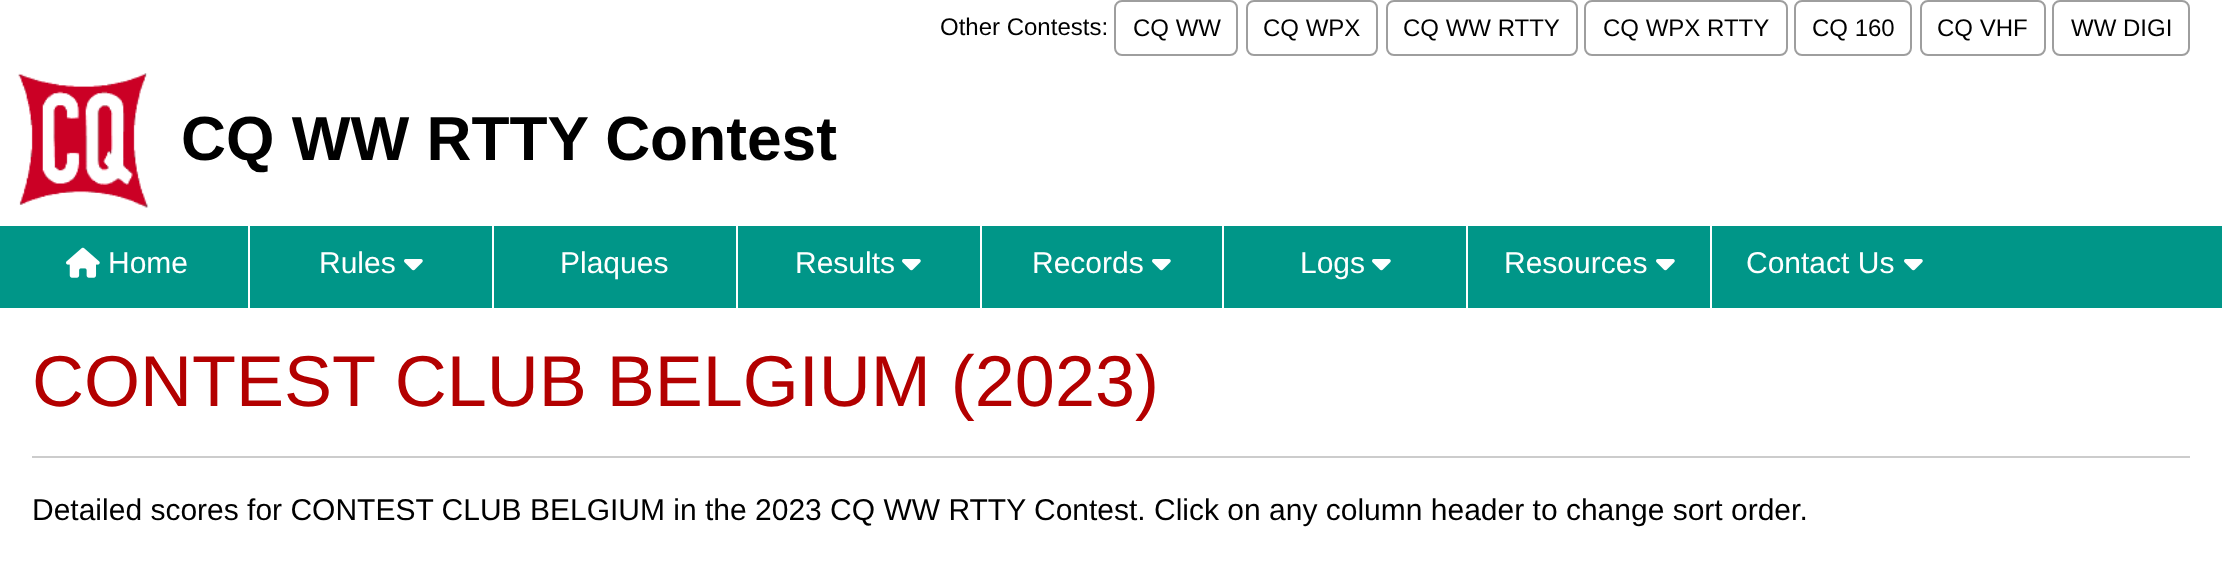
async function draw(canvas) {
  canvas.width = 2222;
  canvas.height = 562;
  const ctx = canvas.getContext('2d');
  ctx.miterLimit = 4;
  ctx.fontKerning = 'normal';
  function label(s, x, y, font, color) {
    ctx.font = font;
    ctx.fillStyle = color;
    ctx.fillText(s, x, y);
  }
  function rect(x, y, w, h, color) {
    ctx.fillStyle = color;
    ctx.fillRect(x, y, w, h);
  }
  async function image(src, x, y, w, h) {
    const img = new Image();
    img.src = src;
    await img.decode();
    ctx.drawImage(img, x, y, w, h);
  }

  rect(0, 0, 2222, 562, '#fff');
  label('Other Contests:', 940, 35, '24px Liberation Sans', '#000');
  ctx.beginPath();
  ctx.roundRect(1115, 1, 122, 54, 7);
  ctx.strokeStyle = '#9e9e9e';
  ctx.lineWidth = 2;
  ctx.stroke();
  label('CQ WW', 1133, 36, '24px Liberation Sans', '#000');
  ctx.beginPath();
  ctx.roundRect(1247, 1, 130, 54, 7);
  ctx.stroke();
  label('CQ WPX', 1263, 36, '24px Liberation Sans', '#000');
  ctx.beginPath();
  ctx.roundRect(1387, 1, 190, 54, 7);
  ctx.stroke();
  label('CQ WW RTTY', 1403, 36, '24px Liberation Sans', '#000');
  ctx.beginPath();
  ctx.roundRect(1585, 1, 202, 54, 7);
  ctx.stroke();
  label('CQ WPX RTTY', 1603, 36, '24px Liberation Sans', '#000');
  ctx.beginPath();
  ctx.roundRect(1795, 1, 116, 54, 7);
  ctx.stroke();
  label('CQ 160', 1812, 36, '24px Liberation Sans', '#000');
  ctx.beginPath();
  ctx.roundRect(1921, 1, 124, 54, 7);
  ctx.stroke();
  label('CQ VHF', 1937, 36, '24px Liberation Sans', '#000');
  ctx.beginPath();
  ctx.roundRect(2053, 1, 136, 54, 7);
  ctx.stroke();
  label('WW DIGI', 2071, 36, '24px Liberation Sans', '#000');
  await image('assets/img1.png', 18, 73, 131, 135);
  label('CQ WW RTTY Contest', 181, 160, 'bold 62.25px Liberation Sans', '#000');
  rect(0, 226, 2222, 82, '#009688');
  rect(248, 226, 2, 82, '#fff');
  await image('assets/img2.png', 66, 247, 34, 31);
  label('Home', 108, 273, '30px Liberation Sans', '#fff');
  rect(492, 226, 2, 82, '#fff');
  label('Rules', 319, 273, '30px Liberation Sans', '#fff');
  await image('assets/img3.png', 404, 259, 19, 12);
  rect(736, 226, 2, 82, '#fff');
  label('Plaques', 560, 273, '30px Liberation Sans', '#fff');
  rect(980, 226, 2, 82, '#fff');
  label('Results', 795, 273, '30px Liberation Sans', '#fff');
  await image('assets/img3.png', 902, 259, 19, 12);
  rect(1222, 226, 2, 82, '#fff');
  label('Records', 1032, 273, '30px Liberation Sans', '#fff');
  await image('assets/img3.png', 1152, 259, 19, 12);
  rect(1466, 226, 2, 82, '#fff');
  label('Logs', 1300, 273, '30px Liberation Sans', '#fff');
  await image('assets/img3.png', 1372, 259, 19, 12);
  rect(1710, 226, 2, 82, '#fff');
  label('Resources', 1504, 273, '30px Liberation Sans', '#fff');
  await image('assets/img3.png', 1656, 259, 19, 12);
  label('Contact Us', 1746, 273, '30px Liberation Sans', '#fff');
  await image('assets/img3.png', 1904, 259, 19, 12);
  rect(32, 456, 2158, 2, '#ccc');
  label('CONTEST CLUB BELGIUM (2023)', 32, 406, '72px Liberation Sans', '#b30000');
  label('Detailed scores for CONTEST CLUB BELGIUM in the 2023 CQ WW RTTY Contest. Click on any column header to change sort order.', 32, 520, '30px Liberation Sans', '#000');
}

draw(document.querySelector('canvas'));
